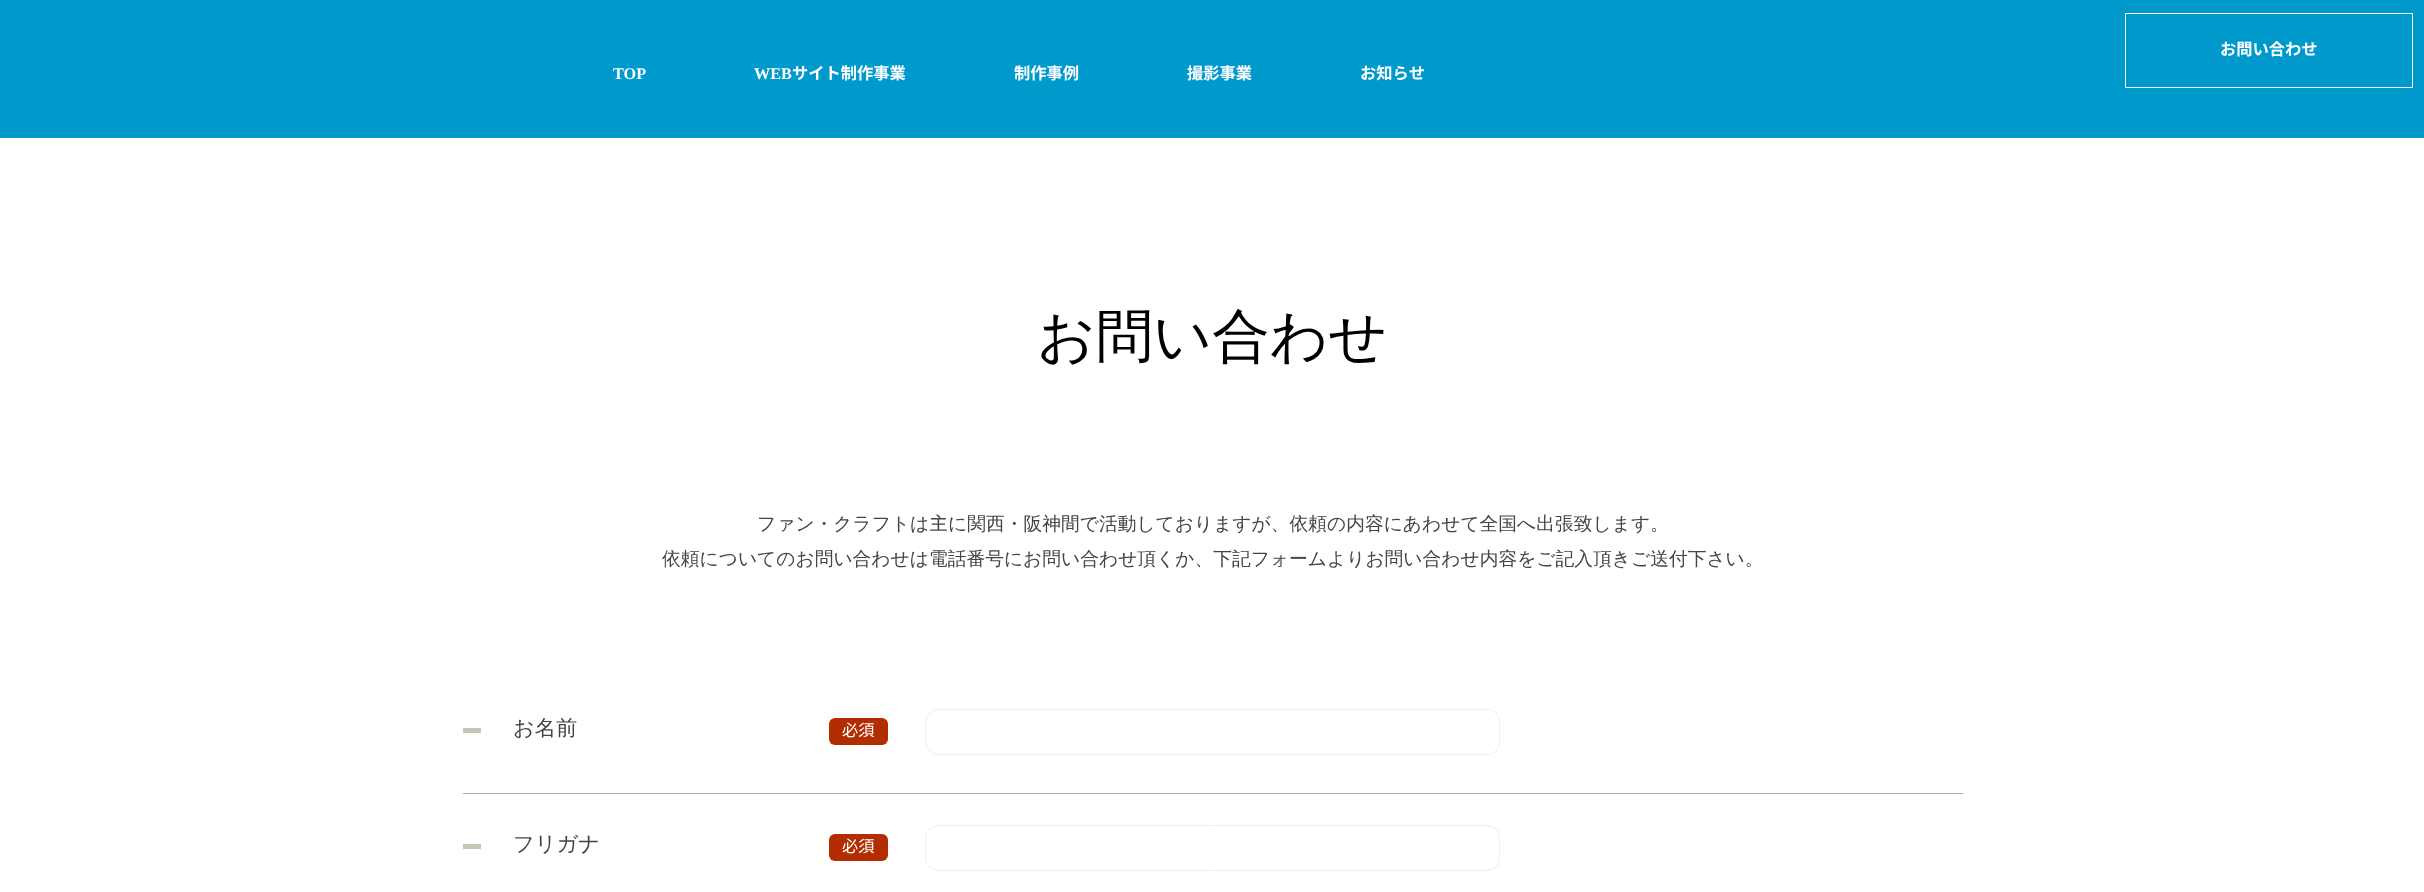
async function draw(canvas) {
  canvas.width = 2424;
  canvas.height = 892;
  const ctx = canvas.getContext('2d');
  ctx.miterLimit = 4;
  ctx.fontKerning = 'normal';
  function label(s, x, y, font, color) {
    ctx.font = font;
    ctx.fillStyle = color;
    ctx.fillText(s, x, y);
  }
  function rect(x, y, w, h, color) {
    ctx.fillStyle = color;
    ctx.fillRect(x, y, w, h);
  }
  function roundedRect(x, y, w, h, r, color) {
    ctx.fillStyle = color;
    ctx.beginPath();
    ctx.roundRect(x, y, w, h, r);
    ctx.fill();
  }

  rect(0, 0, 2424, 892, '#fff');
  rect(0, 0, 2424, 138, '#09c');
  ctx.strokeStyle = '#fff';
  ctx.strokeRect(2125.5, 13.5, 287, 74);
  label('お問い合わせ', 2220, 55, 'bold 16.25px Noto Sans JP', '#fff');
  label('TOP', 613, 79, 'bold 16.25px Liberation Serif', '#fff');
  label('WEB', 754, 79, 'bold 16.25px Liberation Serif', '#fff');
  label('サイト制作事業', 792, 79, 'bold 16.25px Noto Sans JP', '#fff');
  label('制作事例', 1014, 79, 'bold 16.25px Noto Sans JP', '#fff');
  label('撮影事業', 1187, 79, 'bold 16.25px Noto Sans JP', '#fff');
  label('お知らせ', 1360, 79, 'bold 16.25px Noto Sans JP', '#fff');
  label('お問い合わせ', 1037, 356, '500 57.5px WenQuanYi Zen Hei', '#000');
  label('ファン・クラフトは', 757, 530, '500 18.75px WenQuanYi Zen Hei', '#444');
  label('主', 929, 530, '100 18.75px Noto Sans JP', '#444');
  label('に関西・阪神間で活動しておりますが、依頼の内容にあわせて全国へ出張致します。', 948, 530, '500 18.75px WenQuanYi Zen Hei', '#444');
  label('依頼についてのお問い合わせは電話番号にお問い合わせ頂くか、下記フォームよりお問い合わせ内容をご記入頂きご送付下さい。', 662, 565, '500 18.75px WenQuanYi Zen Hei', '#444');
  rect(463, 793, 1500, 1, '#aaa');
  rect(463, 728, 18, 5, '#c7c5b8');
  label('お名前', 513, 735, '500 21.25px WenQuanYi Zen Hei', '#444');
  roundedRect(829, 718, 59, 27, 6, '#b22d00');
  label('必須', 842, 736, '100 16.25px Noto Sans JP', '#fff');
  ctx.beginPath();
  ctx.roundRect(925.5, 709.5, 574, 45, 12.5);
  ctx.strokeStyle = '#eee';
  ctx.stroke();
  rect(463, 844, 18, 5, '#c7c5b8');
  label('フリガナ', 513, 851, '500 21.25px WenQuanYi Zen Hei', '#444');
  roundedRect(829, 834, 59, 27, 6, '#b22d00');
  label('必須', 842, 852, '100 16.25px Noto Sans JP', '#fff');
  ctx.beginPath();
  ctx.roundRect(925.5, 825.5, 574, 45, 12.5);
  ctx.stroke();
}

draw(document.querySelector('canvas'));
